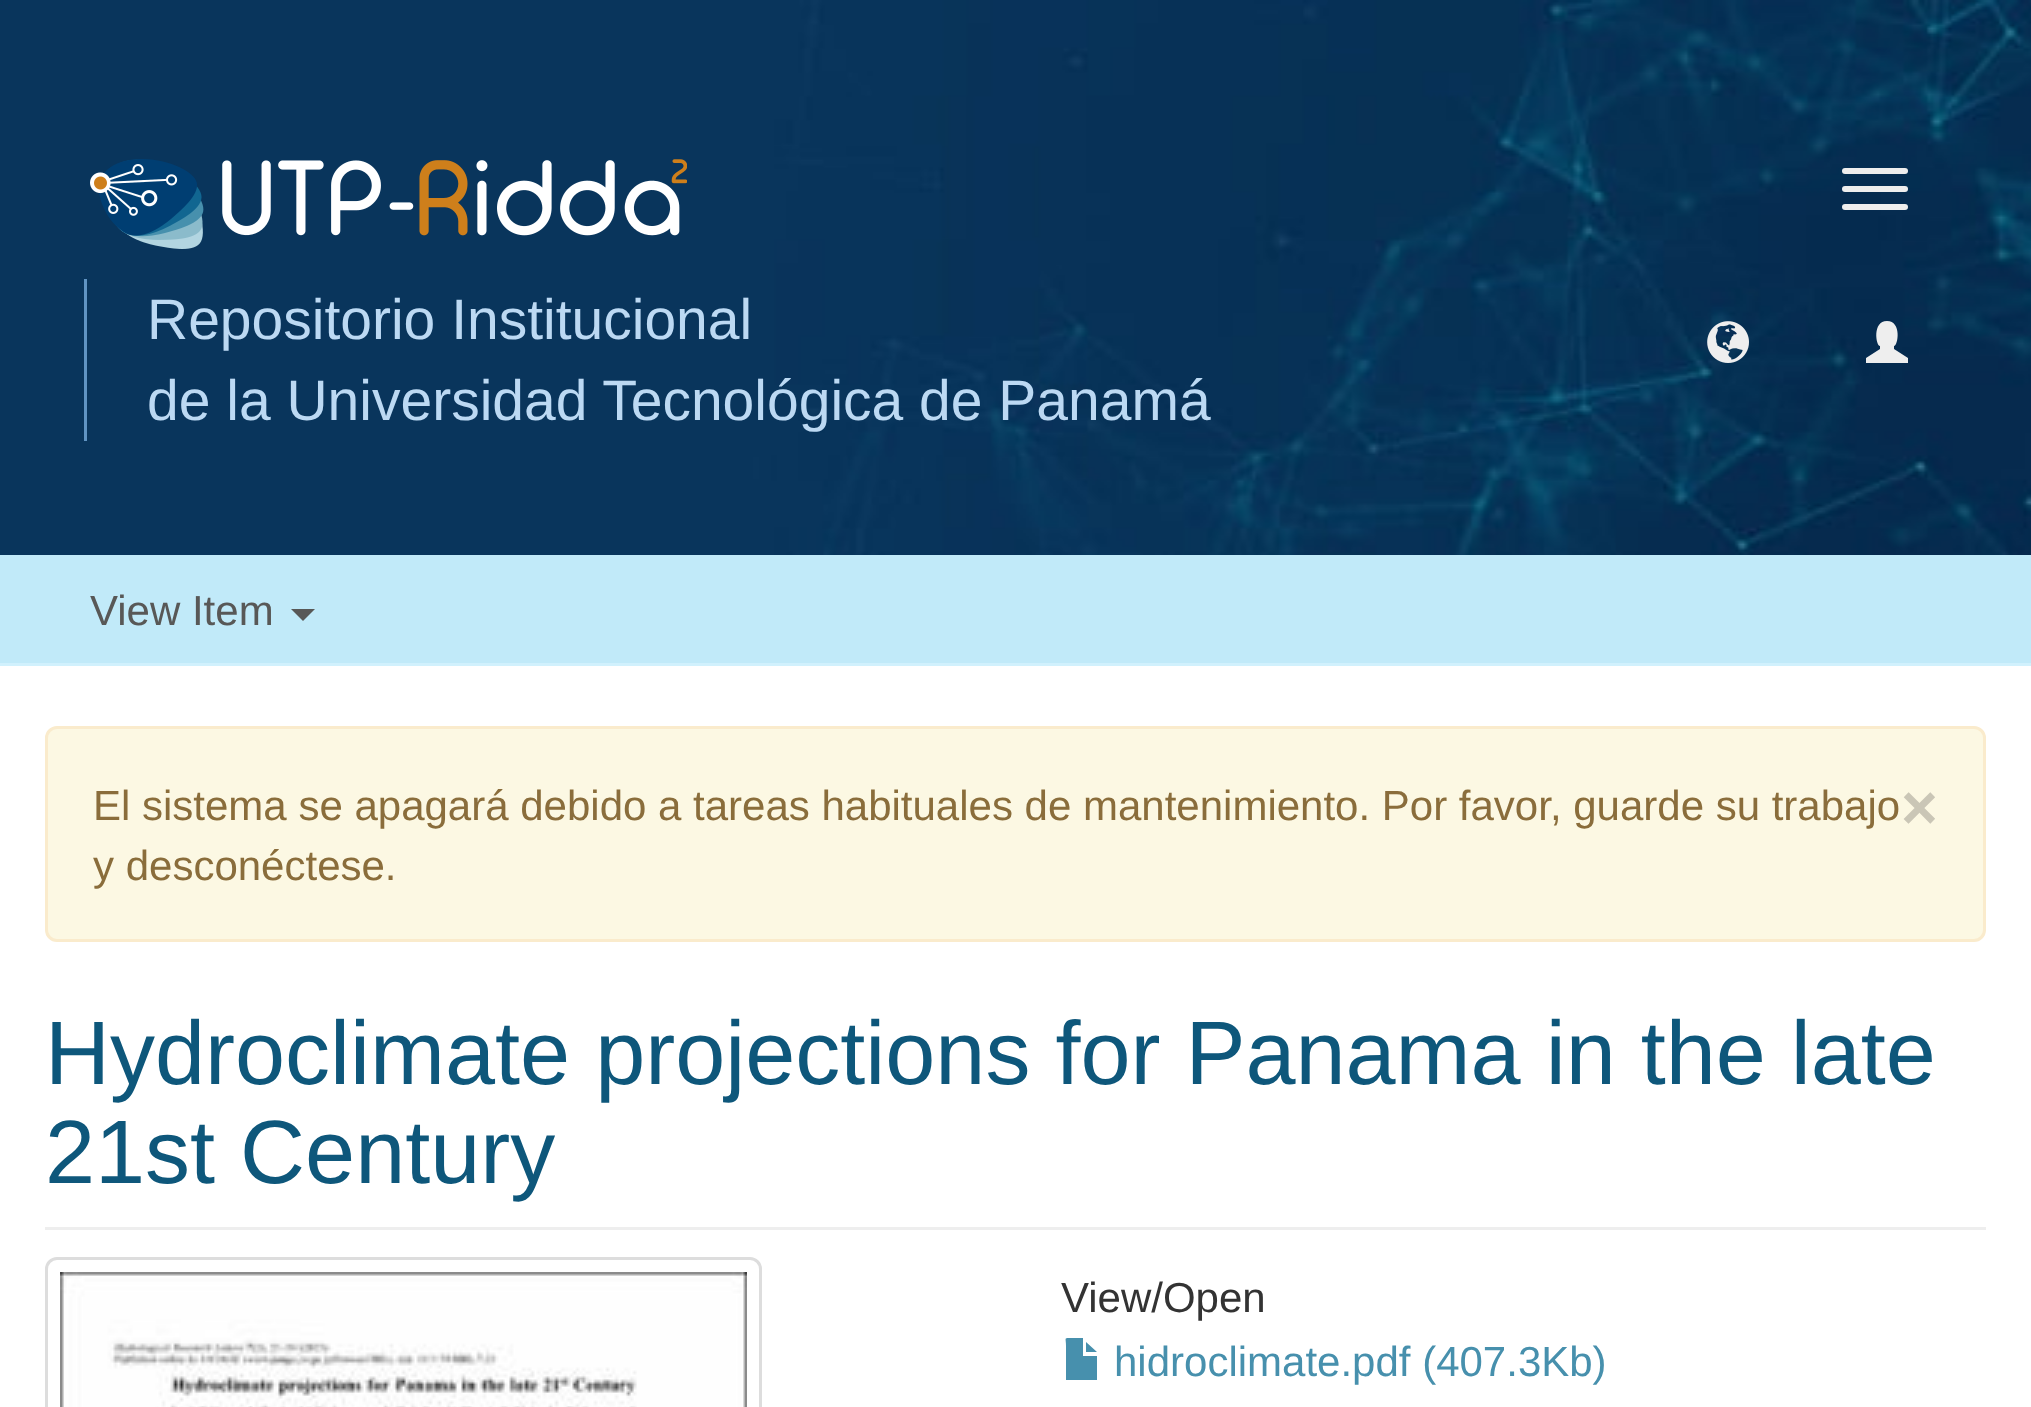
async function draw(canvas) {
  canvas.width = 2031;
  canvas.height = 1407;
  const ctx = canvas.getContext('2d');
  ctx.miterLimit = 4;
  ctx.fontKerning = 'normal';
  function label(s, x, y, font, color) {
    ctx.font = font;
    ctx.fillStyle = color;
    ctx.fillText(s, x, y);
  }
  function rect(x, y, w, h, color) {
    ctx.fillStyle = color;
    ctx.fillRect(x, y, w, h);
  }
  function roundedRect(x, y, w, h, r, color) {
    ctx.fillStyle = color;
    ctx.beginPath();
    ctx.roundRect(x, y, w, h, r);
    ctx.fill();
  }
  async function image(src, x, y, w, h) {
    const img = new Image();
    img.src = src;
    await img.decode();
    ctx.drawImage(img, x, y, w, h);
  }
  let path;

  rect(0, 0, 2031, 1407, '#c1eaf9');
  await image('assets/img1.png', 0, 0, 2031, 555);
  await image('assets/img2.png', 90, 159, 597, 90);
  roundedRect(1842, 168, 66, 6, 3, '#eee');
  roundedRect(1842, 186, 66, 6, 3, '#eee');
  roundedRect(1842, 204, 66, 6, 3, '#eee');
  rect(84, 279, 3, 162, '#6094c3');
  label('Repositorio Institucional', 147, 339, '57px Liberation Sans', '#bcd9f3');
  label('de la Universidad Tecnológica de Panamá', 147, 420, '57px Liberation Sans', '#bcd9f3');
  await image('assets/img3.png', 1707, 321, 42, 42);
  ctx.fillStyle = '#eee';
  path = new Path2D('M1866 363V358L1880 349V346C1876 346 1872 321 1887 321C1902 321 1898 346 1894 346V349L1908 358V363Z');
  ctx.fill(path);
  rect(0, 663, 2031, 3, '#d1f1fd');
  label('View Item', 90, 625, '42px Liberation Sans', '#585857');
  path = new Path2D('M291 609H315L303 621Z');
  ctx.fill(path);
  rect(0, 666, 2031, 741, '#fff');
  ctx.fillStyle = '#fcf8e3';
  ctx.beginPath();
  ctx.roundRect(46.5, 727.5, 1938, 213, 10.5);
  ctx.fill();
  ctx.strokeStyle = '#faebcc';
  ctx.lineWidth = 3;
  ctx.stroke();
  label('El sistema se apagará debido a tareas habituales de mantenimiento. Por favor, guarde su trabajo', 93, 820, '42px Liberation Sans', '#8a6d3b');
  label('×', 1901, 829, 'bold 63px Liberation Sans', '#cac6b6');
  label('y desconéctese.', 93, 880, '42px Liberation Sans', '#8a6d3b');
  rect(45, 1227, 1941, 3, '#eee');
  label('Hydroclimate projections for Panama in the late', 45, 1084, '90px Liberation Sans', '#0e577b');
  label('21st Century', 45, 1183, '90px Liberation Sans', '#0e577b');
  ctx.beginPath();
  ctx.roundRect(46.5, 1258.5, 714, 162, 10.5);
  ctx.strokeStyle = '#ddd';
  ctx.stroke();
  await image('assets/img4.png', 60, 1272, 687, 135);
  label('View/Open', 1061, 1312, '42px Liberation Sans', '#333');
  ctx.fillStyle = '#4790ad';
  path = new Path2D('M1066 1379V1346C1066 1338 1064 1338 1069 1338H1083V1356H1097V1380H1096H1066ZM1086 1352V1342L1097 1352Z');
  ctx.fill(path);
  label('hidroclimate.pdf (407.3Kb)', 1114, 1376, '42px Liberation Sans', '#4790ad');
}

draw(document.querySelector('canvas'));
